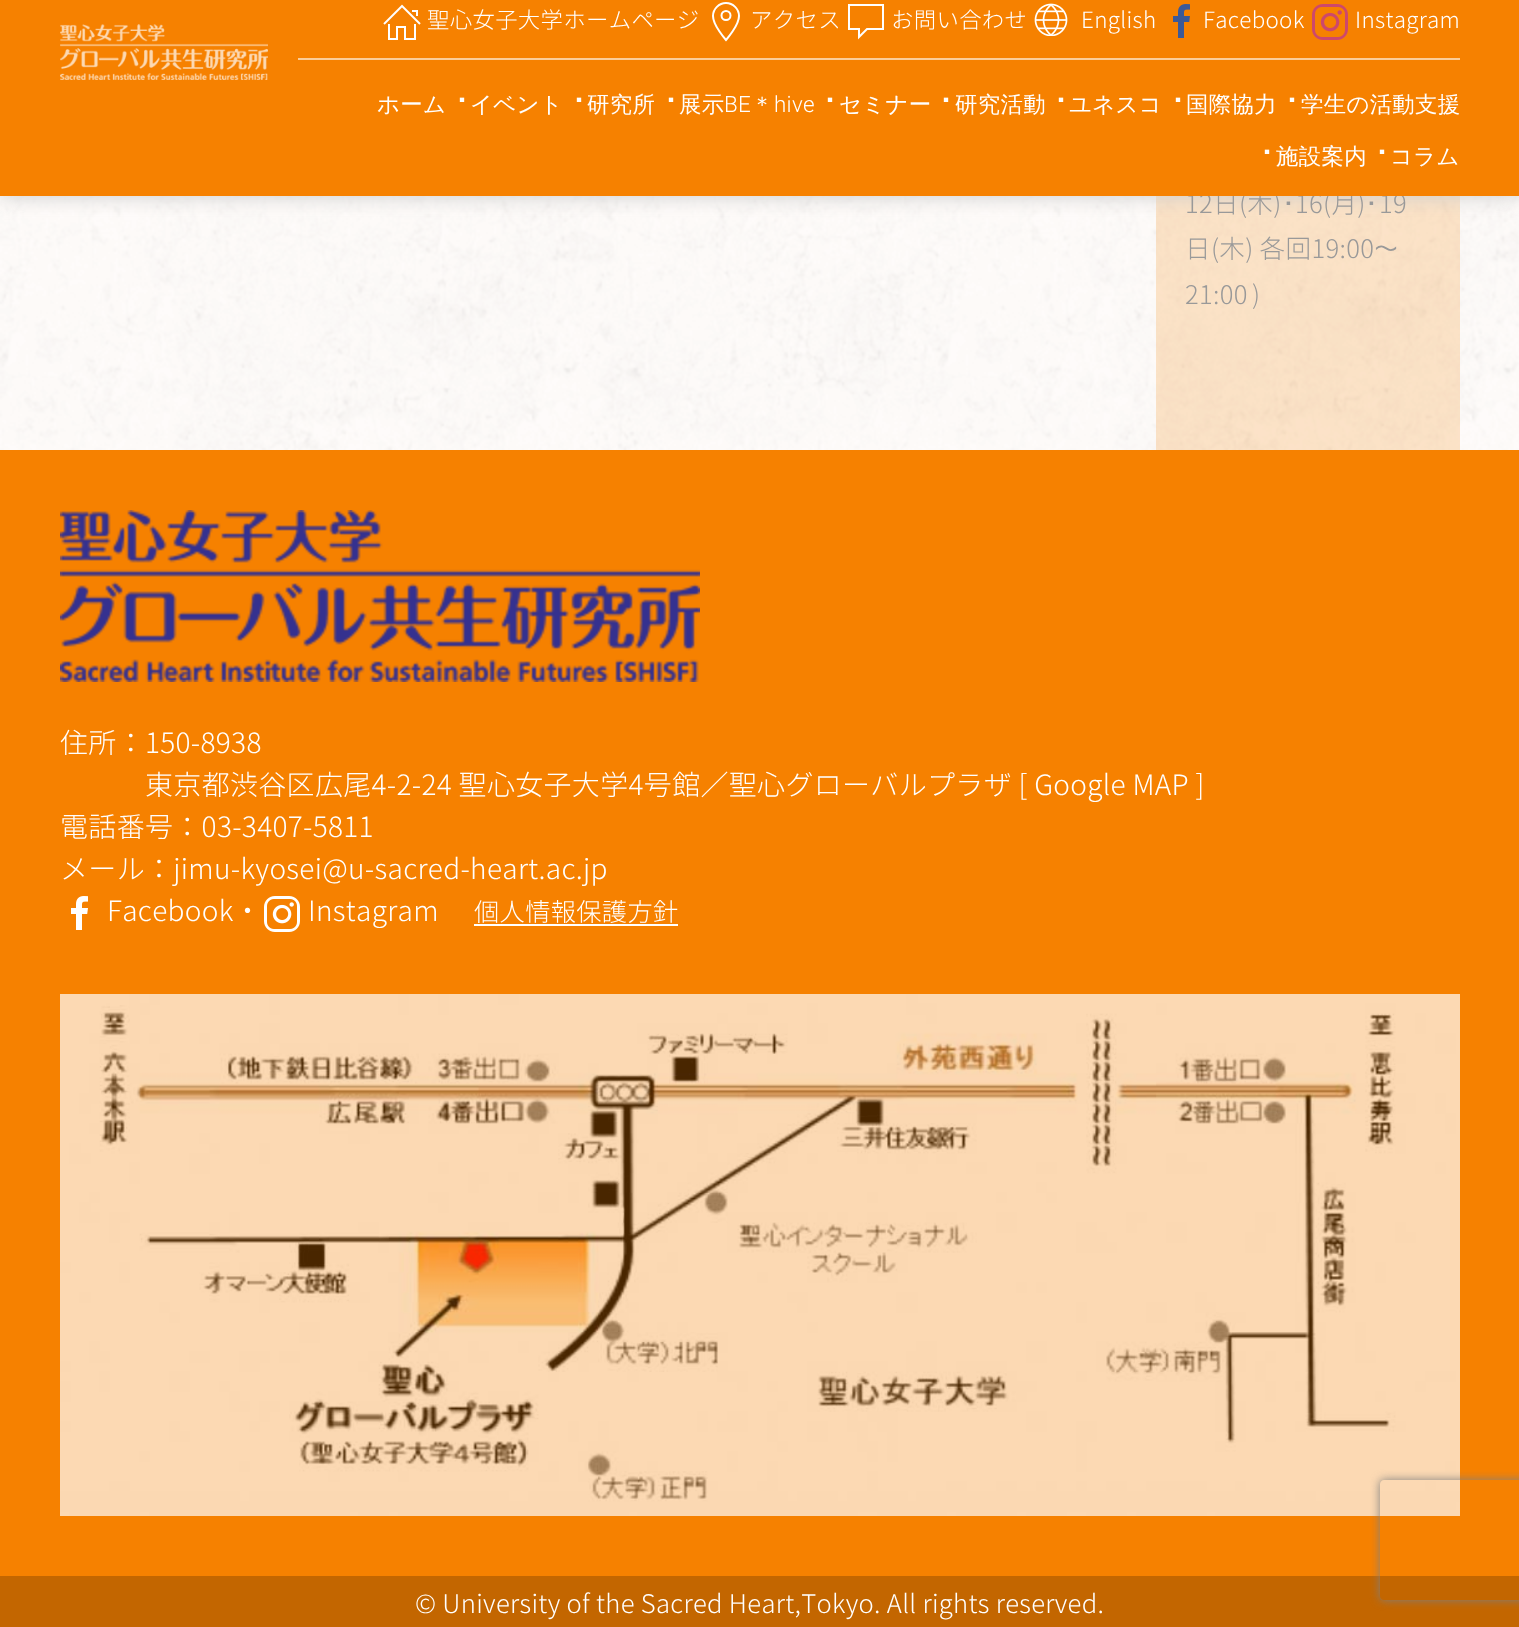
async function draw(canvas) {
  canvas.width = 1519;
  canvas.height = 1627;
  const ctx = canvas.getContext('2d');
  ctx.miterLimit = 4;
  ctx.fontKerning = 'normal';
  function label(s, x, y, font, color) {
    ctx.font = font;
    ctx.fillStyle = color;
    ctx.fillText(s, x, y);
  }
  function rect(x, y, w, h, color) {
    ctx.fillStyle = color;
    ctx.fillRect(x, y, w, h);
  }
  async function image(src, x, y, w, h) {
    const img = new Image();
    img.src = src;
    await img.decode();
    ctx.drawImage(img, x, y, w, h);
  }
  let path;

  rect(0, 0, 1519, 1627, '#fff');
  await image('assets/img1.png', 0, 196, 1519, 254);
  rect(1156, 196, 304, 254, '#f6810033');
  ctx.fillStyle = '#ccc';
  ctx.filter = 'blur(10px)';
  ctx.beginPath();
  ctx.rect(0, 0, 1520, 196);
  ctx.fill();
  ctx.filter = 'none';
  ctx.letterSpacing = '0.32px';
  label('12日(木)', 1185, 213, '300 25.6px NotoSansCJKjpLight', '#999');
  label('16(月)', 1295, 213, '300 25.6px NotoSansCJKjpLight', '#999');
  label('19', 1379, 213, '300 25.6px NotoSansCJKjpLight', '#999');
  rect(0, 0, 1519, 196, '#f68100');
  await image('assets/img2.png', 60, 24, 208, 56);
  await image('assets/img3.png', 383, 4, 38, 36);
  label('聖心女子大学ホームページ', 427, 28, '300 22.4px NotoSansCJKjpLight', '#fff');
  path = new Path2D('M726 3C719 3 713 9 713 16C713 25.5 726 40 726 40C726 40 739 25.5 739 16C739 9 733 3 726 3Z');
  ctx.strokeStyle = '#fff';
  ctx.lineWidth = 2;
  ctx.stroke(path);
  ctx.beginPath();
  ctx.arc(726, 15.5, 4.5, 0, 2 * Math.PI);
  ctx.stroke();
  label('アクセス', 750, 28, '300 22.4px NotoSansCJKjpLight', '#fff');
  await image('assets/img4.png', 848, 4, 36, 36);
  label('お問い合わせ', 891, 28, '300 22.4px NotoSansCJKjpLight', '#fff');
  await image('assets/img5.png', 1034, 3, 34, 33);
  label('English', 1081, 28, '300 22.4px NotoSansCJKjpLight', '#fff');
  await image('assets/img6.png', 1173, 4, 17, 34);
  label('Facebook', 1203, 28, '300 22.4px NotoSansCJKjpLight', '#fff');
  await image('assets/img7.png', 1312, 4, 36, 36);
  label('Instagram', 1355, 28, '300 22.4px NotoSansCJKjpLight', '#fff');
  rect(298, 58, 1162, 2, '#fbcd99');
  label('ホーム', 377, 112, '500 22.4px WenQuanYi Zen Hei', '#fff');
  label('･', 454, 112, '32px IPAPGothic', '#fff');
  label('イベント', 470, 112, '500 22.4px WenQuanYi Zen Hei', '#fff');
  label('･', 571, 112, '32px IPAPGothic', '#fff');
  label('研究所', 587, 112, '500 22.4px WenQuanYi Zen Hei', '#fff');
  label('･', 663, 112, '32px IPAPGothic', '#fff');
  label('展示', 679, 112, '500 22.4px WenQuanYi Zen Hei', '#fff');
  label('BE', 724, 112, '300 22.4px Roboto', '#fff');
  label('＊', 751, 112, '500 22.4px WenQuanYi Zen Hei', '#fff');
  label('hive', 774, 112, '300 22.4px Roboto', '#fff');
  label('･', 822, 112, '32px IPAPGothic', '#fff');
  label('セミナー', 839, 112, '500 22.4px WenQuanYi Zen Hei', '#fff');
  label('･', 938, 112, '32px IPAPGothic', '#fff');
  label('研究活動', 955, 112, '500 22.4px WenQuanYi Zen Hei', '#fff');
  label('･', 1053, 112, '32px IPAPGothic', '#fff');
  label('ユネスコ', 1069, 112, '500 22.4px WenQuanYi Zen Hei', '#fff');
  label('･', 1170, 112, '32px IPAPGothic', '#fff');
  label('国際協力', 1186, 112, '500 22.4px WenQuanYi Zen Hei', '#fff');
  label('･', 1284, 112, '32px IPAPGothic', '#fff');
  label('学生の活動支援', 1301, 112, '500 22.4px WenQuanYi Zen Hei', '#fff');
  label('･', 1259, 164, '32px IPAPGothic', '#fff');
  label('施設案内', 1276, 164, '500 22.4px WenQuanYi Zen Hei', '#fff');
  label('･', 1374, 164, '32px IPAPGothic', '#fff');
  label('コラム', 1390, 164, '500 22.4px WenQuanYi Zen Hei', '#fff');
  label('･', 1282, 213, '25.6px IPAPGothic', '#999');
  label('･', 1365, 213, '25.6px IPAPGothic', '#999');
  label('日(木) 各回19:00', 1185, 258, '300 25.6px NotoSansCJKjpLight', '#999');
  label('～', 1374, 258, '25.6px IPAPGothic', '#999');
  label('21:00', 1185, 304, '300 25.6px NotoSansCJKjpLight', '#999');
  label(')', 1252, 304, '300 25.6px NotoSansCJKjpLight', '#999');
  rect(0, 450, 1519, 1126, '#f68100');
  await image('assets/img8.png', 60, 510, 640, 172);
  label('住所：150-8938', 60, 753, '300 28px NotoSansCJKjpLight', '#fff');
  label('東京都渋谷区広尾4-2-24 聖心女子大学4号館／聖心グローバルプラザ [ Google MAP ]', 145, 795, '300 28px NotoSansCJKjpLight', '#fff');
  label('電話番号：03-3407-5811', 60, 837, '300 28px NotoSansCJKjpLight', '#fff');
  label('メール：jimu-kyosei@u-sacred-heart.ac.jp', 60, 879, '300 28px NotoSansCJKjpLight', '#fff');
  await image('assets/img9.png', 71, 896, 17, 34);
  label('Facebook・', 107, 921, '300 28px NotoSansCJKjpLight', '#fff');
  await image('assets/img10.png', 264, 896, 36, 36);
  label('Instagram', 308, 921, '300 28px NotoSansCJKjpLight', '#fff');
  label('個人情報保護方針', 474, 921, '300 25.25px NotoSansCJKjpLight', '#fff');
  rect(474, 924, 204, 2, '#fff');
  await image('assets/img11.png', 60, 994, 1400, 522);
  rect(0, 1576, 1519, 51, '#c36600');
  label('© University of the Sacred Heart,Tokyo. All rights reserved.', 415, 1613, '300 25.6px NotoSansCJKjpLight', '#fff');
  ctx.save();
  path = new Path2D('M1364 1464H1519V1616H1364ZM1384 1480H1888C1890 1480 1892 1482 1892 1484V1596C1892 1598 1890 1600 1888 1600H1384C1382 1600 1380 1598 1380 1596V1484C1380 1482 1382 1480 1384 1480Z');
  ctx.clip(path, 'evenodd');
  ctx.fillStyle = '#808080';
  ctx.filter = 'blur(5px)';
  ctx.beginPath();
  ctx.roundRect(1380, 1480, 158, 120, 4);
  ctx.fill();
  ctx.filter = 'none';
  ctx.restore();
}

draw(document.querySelector('canvas'));
